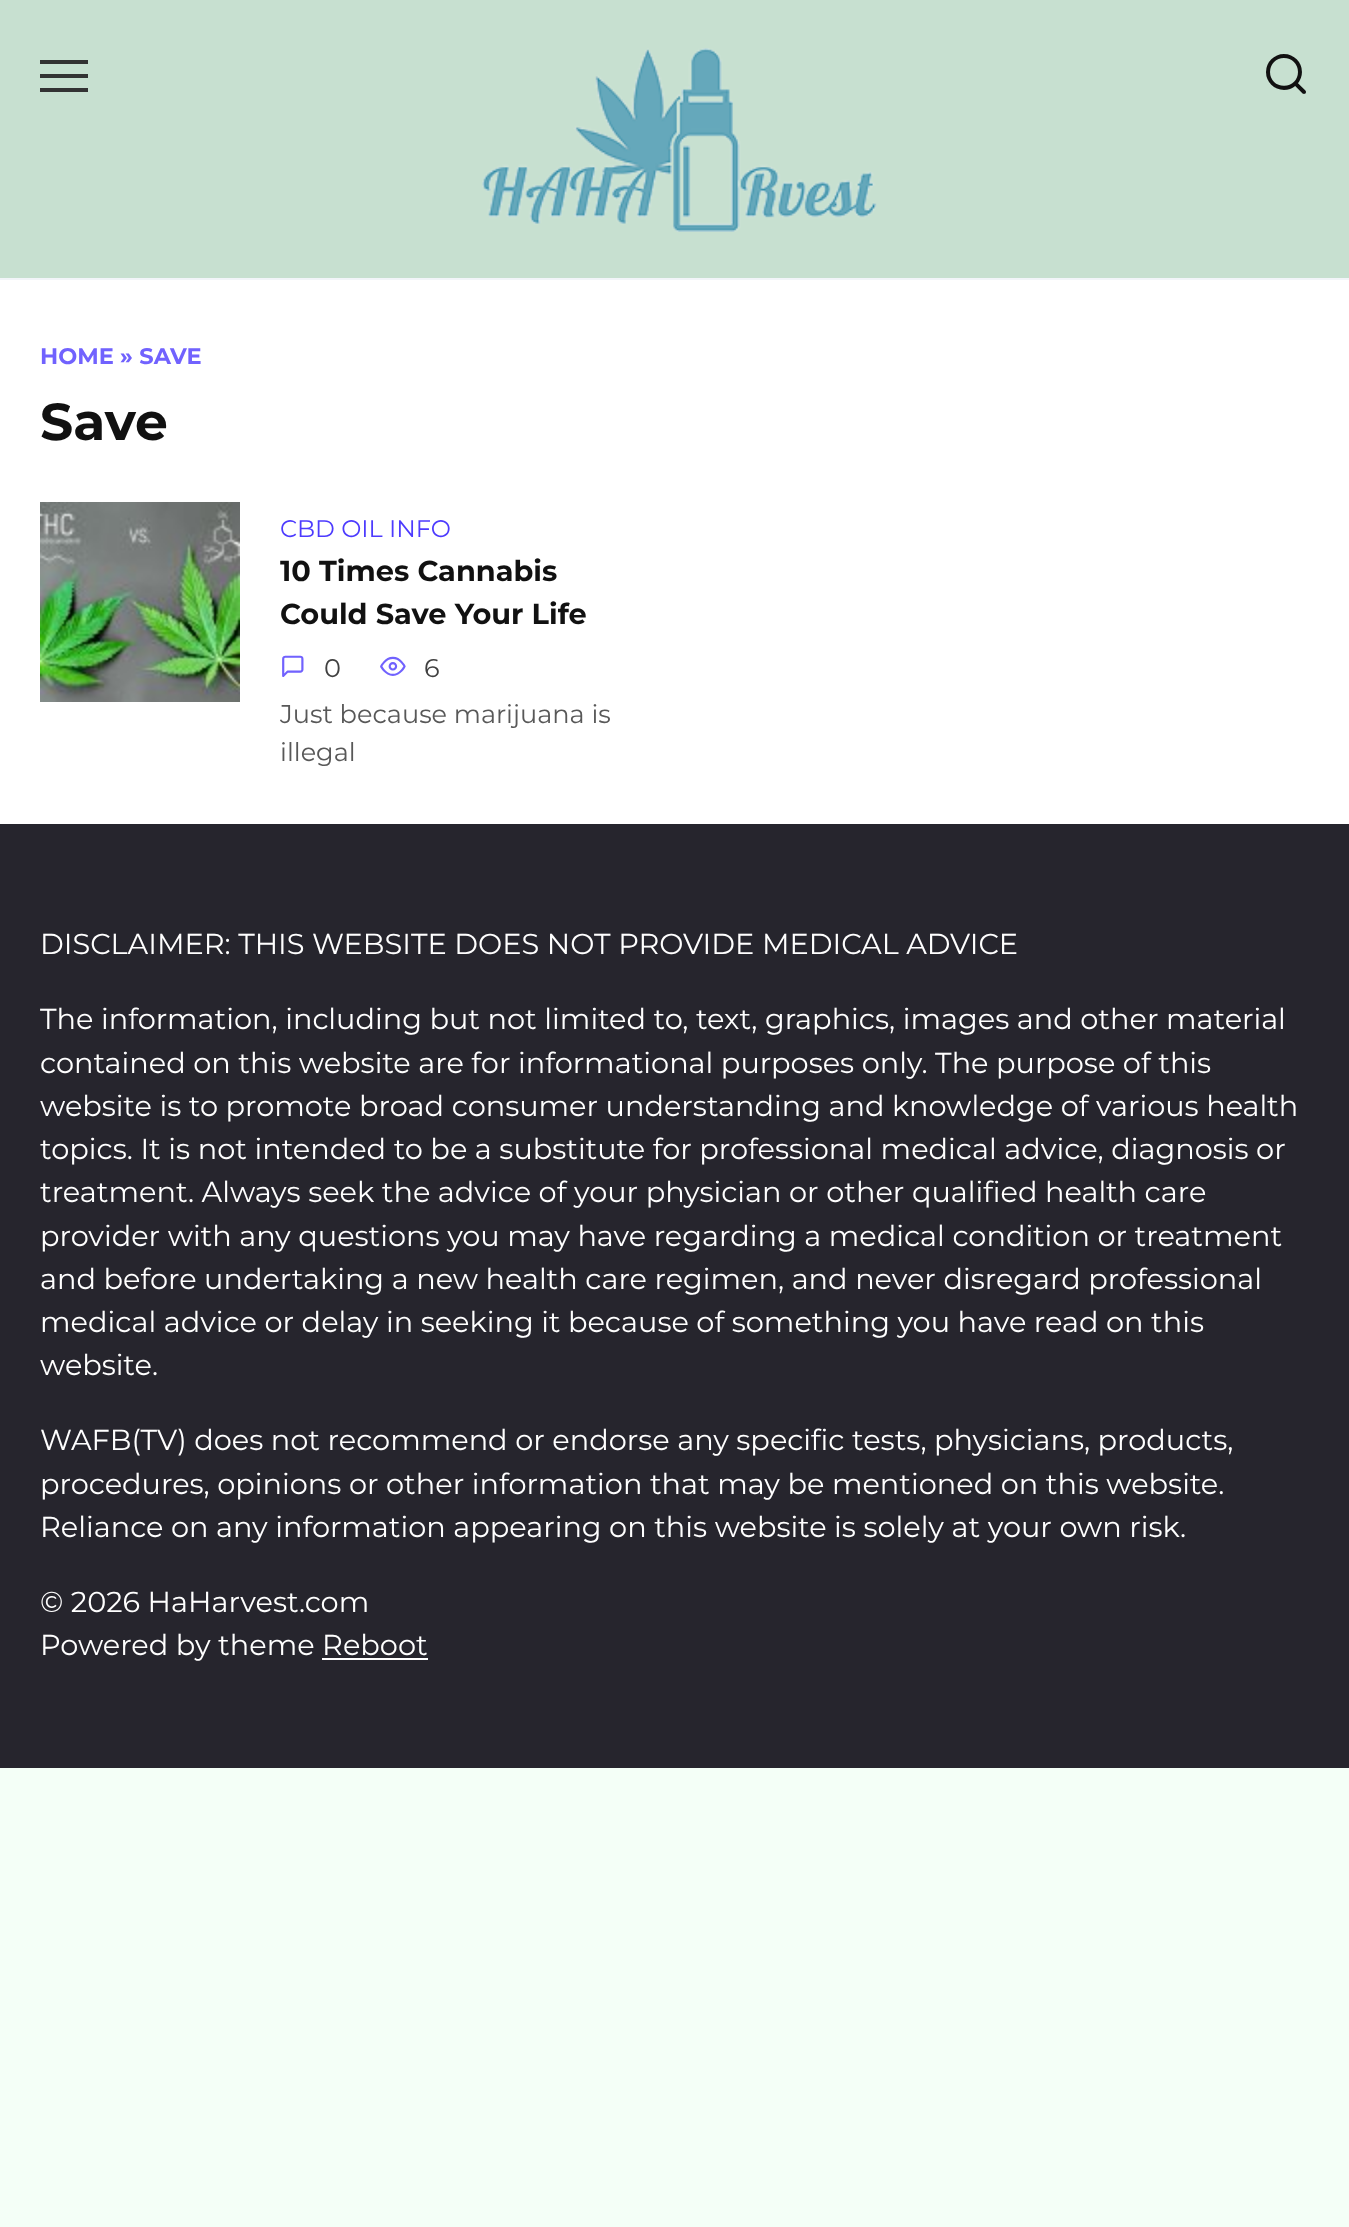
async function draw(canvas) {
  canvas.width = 1349;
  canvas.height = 2227;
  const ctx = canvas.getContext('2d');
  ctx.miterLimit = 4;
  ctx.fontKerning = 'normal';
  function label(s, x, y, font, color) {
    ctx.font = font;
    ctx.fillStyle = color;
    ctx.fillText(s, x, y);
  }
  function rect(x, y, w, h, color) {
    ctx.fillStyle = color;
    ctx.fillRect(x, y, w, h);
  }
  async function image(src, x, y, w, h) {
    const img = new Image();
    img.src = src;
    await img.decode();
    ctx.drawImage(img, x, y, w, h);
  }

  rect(0, 0, 1349, 2227, '#f4fff7');
  rect(0, 0, 1349, 278, '#c7e0d0');
  rect(0, 278, 1349, 2, '#f2f5f9');
  rect(40, 60, 48, 4, '#333');
  rect(40, 74, 48, 4, '#333');
  rect(40, 88, 48, 4, '#333');
  await image('assets/img1.png', 482, 48, 395, 184);
  label('🔍', 1262, 94, '48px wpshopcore', '#111');
  rect(0, 280, 1349, 544, '#fff');
  label('HOME » SAVE', 40, 364, 'bold 22.5px Montserrat', '#7162fe');
  label('Save', 40, 440, 'bold 52px Montserrat', '#111');
  await image('assets/img2.png', 40, 502, 200, 200);
  label('CBD OIL INFO', 280, 537, '24px Montserrat', '#4d3bfe');
  label('10 Times Cannabis', 280, 581, 'bold 28.8px Montserrat', '#111');
  label('Could Save Your Life', 280, 624, 'bold 28.8px Montserrat', '#111');
  label('💬', 280, 677, '25.6px wpshopcore', '#7162fe');
  label('0', 324, 677, '25.6px Montserrat', '#414141');
  label('👀', 380, 677, '25.6px wpshopcore', '#7162fe');
  label('6', 424, 677, '25.6px Montserrat', '#414141');
  label('Just because marijuana is', 280, 723, '25.6px Montserrat', '#585858');
  label('illegal', 280, 761, '25.6px Montserrat', '#585858');
  rect(0, 824, 1349, 944, '#26252d');
  label('DISCLAIMER: THIS WEBSITE DOES NOT PROVIDE MEDICAL ADVICE', 40, 954, '28.8px Montserrat', '#fff');
  label('The information, including but not limited to, text, graphics, images and other material', 40, 1029, '28.8px Montserrat', '#fff');
  label('contained on this website are for informational purposes only. The purpose of this', 40, 1073, '28.8px Montserrat', '#fff');
  label('website is to promote broad consumer understanding and knowledge of various health', 40, 1116, '28.8px Montserrat', '#fff');
  label('topics. It is not intended to be a substitute for professional medical advice, diagnosis or', 40, 1159, '28.8px Montserrat', '#fff');
  label('treatment. Always seek the advice of your physician or other qualified health care', 40, 1202, '28.8px Montserrat', '#fff');
  label('provider with any questions you may have regarding a medical condition or treatment', 40, 1246, '28.8px Montserrat', '#fff');
  label('and before undertaking a new health care regimen, and never disregard professional', 40, 1289, '28.8px Montserrat', '#fff');
  label('medical advice or delay in seeking it because of something you have read on this', 40, 1332, '28.8px Montserrat', '#fff');
  label('website.', 40, 1375, '28.8px Montserrat', '#fff');
  label('WAFB(TV) does not recommend or endorse any specific tests, physicians, products,', 40, 1450, '28.8px Montserrat', '#fff');
  label('procedures, opinions or other information that may be mentioned on this website.', 40, 1494, '28.8px Montserrat', '#fff');
  label('Reliance on any information appearing on this website is solely at your own risk.', 40, 1537, '28.8px Montserrat', '#fff');
  label('© 2026 HaHarvest.com', 40, 1612, '28.8px Montserrat', '#fff');
  label('Powered by theme Reboot', 40, 1655, '28.8px Montserrat', '#fff');
  rect(322, 1658, 106, 2, '#fff');
}

draw(document.querySelector('canvas'));
